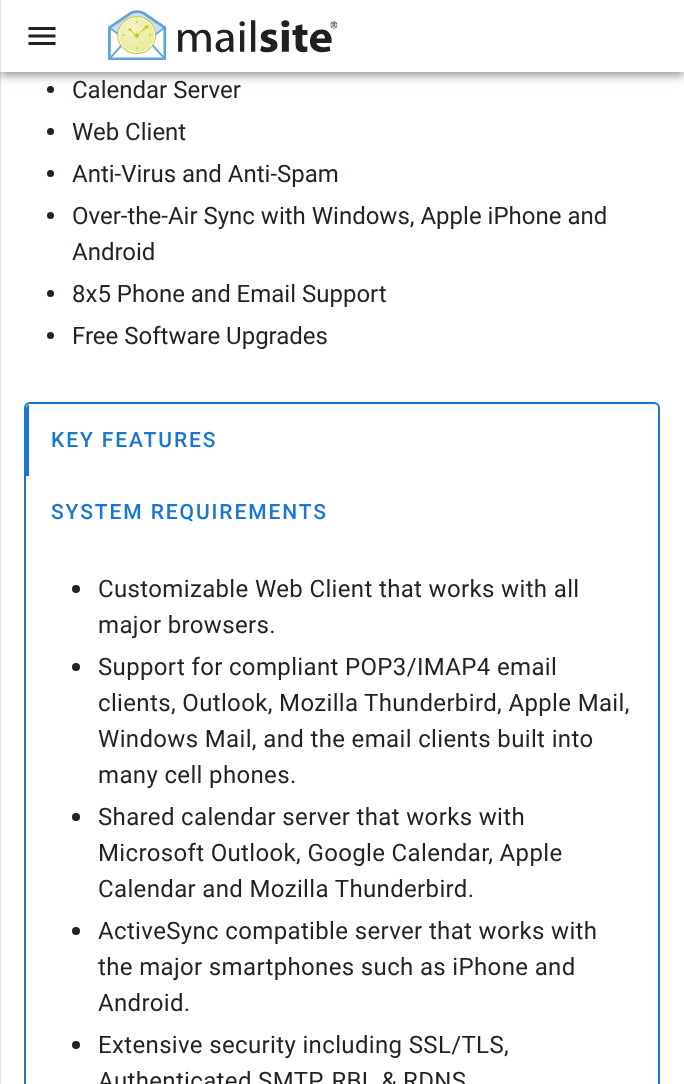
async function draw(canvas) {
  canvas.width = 684;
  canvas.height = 1084;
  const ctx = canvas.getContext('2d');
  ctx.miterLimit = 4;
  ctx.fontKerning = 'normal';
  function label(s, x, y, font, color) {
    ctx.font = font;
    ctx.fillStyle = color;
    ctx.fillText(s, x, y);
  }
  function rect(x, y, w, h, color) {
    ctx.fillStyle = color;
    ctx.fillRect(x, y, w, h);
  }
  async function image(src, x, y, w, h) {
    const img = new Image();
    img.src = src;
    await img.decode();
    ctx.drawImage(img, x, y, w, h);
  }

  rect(0, 0, 684, 1084, '#fff');
  ctx.fillStyle = '#1f2328';
  ctx.beginPath();
  ctx.arc(50.5, 89.5, 3.5, 0, 2 * Math.PI);
  ctx.fill();
  ctx.fillStyle = '#0000001f';
  ctx.filter = 'blur(7.5px)';
  ctx.beginPath();
  ctx.rect(0, 2, 684, 72);
  ctx.fill();
  ctx.filter = 'none';
  ctx.fillStyle = '#00000024';
  ctx.filter = 'blur(4px)';
  ctx.beginPath();
  ctx.rect(0, 6, 684, 72);
  ctx.fill();
  ctx.filter = 'none';
  ctx.fillStyle = '#00000033';
  ctx.filter = 'blur(3px)';
  ctx.beginPath();
  ctx.rect(2, 5, 681, 69);
  ctx.fill();
  ctx.filter = 'none';
  rect(0, 0, 684, 72, '#fff');
  await image('assets/img1.png', 28, 27, 28, 18);
  await image('assets/img2.png', 108, 10, 230, 50);
  rect(0, 0, 1, 1084, '#0000001f');
  label('Calendar Server', 72, 98, '24px Roboto', '#1f2328');
  ctx.beginPath();
  ctx.arc(50.5, 131.5, 3.5, 0, 2 * Math.PI);
  ctx.fill();
  label('Web Client', 72, 140, '24px Roboto', '#1f2328');
  ctx.beginPath();
  ctx.arc(50.5, 173.5, 3.5, 0, 2 * Math.PI);
  ctx.fill();
  label('Anti-Virus and Anti-Spam', 72, 182, '24px Roboto', '#1f2328');
  ctx.beginPath();
  ctx.arc(50.5, 215.5, 3.5, 0, 2 * Math.PI);
  ctx.fill();
  label('Over-the-Air Sync with Windows, Apple iPhone and', 72, 224, '24px Roboto', '#1f2328');
  label('Android', 72, 260, '24px Roboto', '#1f2328');
  ctx.beginPath();
  ctx.arc(50.5, 293.5, 3.5, 0, 2 * Math.PI);
  ctx.fill();
  label('8x5 Phone and Email Support', 72, 302, '24px Roboto', '#1f2328');
  ctx.beginPath();
  ctx.arc(50.5, 335.5, 3.5, 0, 2 * Math.PI);
  ctx.fill();
  label('Free Software Upgrades', 72, 344, '24px Roboto', '#1f2328');
  ctx.beginPath();
  ctx.roundRect(25, 403, 634, 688, 5);
  ctx.strokeStyle = '#1976d2';
  ctx.lineWidth = 2;
  ctx.stroke();
  ctx.save();
  ctx.beginPath();
  ctx.roundRect(26, 404, 633, 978, 5);
  ctx.clip();
  rect(26, 404, 3, 72, '#1976d2');
  ctx.restore();
  ctx.letterSpacing = '1.9px';
  label('KEY FEATURES', 51, 447, '500 21px Roboto', '#1976d2');
  label('SYSTEM REQUIREMENTS', 51, 519, '500 21px Roboto', '#1976d2');
  ctx.fillStyle = '#1f2328';
  ctx.beginPath();
  ctx.arc(76, 589, 4, 0, 2 * Math.PI);
  ctx.fill();
  ctx.letterSpacing = '0.35px';
  label('Customizable Web Client that works with all', 98, 597, '24px Roboto', '#1f2328');
  label('major browsers.', 98, 633, '24px Roboto', '#1f2328');
  ctx.beginPath();
  ctx.arc(76, 667, 4, 0, 2 * Math.PI);
  ctx.fill();
  label('Support for compliant POP3/IMAP4 email', 98, 675, '24px Roboto', '#1f2328');
  label('clients, Outlook, Mozilla', 98, 711, '24px Roboto', '#1f2328');
  label('Thunderbird, Apple Mail,', 364, 711, '24px Roboto', '#1f2328');
  label('Windows Mail, and the email clients built into', 98, 747, '24px Roboto', '#1f2328');
  label('many cell phones.', 98, 783, '24px Roboto', '#1f2328');
  ctx.beginPath();
  ctx.arc(76, 817, 4, 0, 2 * Math.PI);
  ctx.fill();
  label('Shared calendar server that works with', 98, 825, '24px Roboto', '#1f2328');
  label('Microsoft Outlook, Google Calendar, Apple', 98, 861, '24px Roboto', '#1f2328');
  label('Calendar and Mozilla Thunderbird.', 98, 897, '24px Roboto', '#1f2328');
  ctx.beginPath();
  ctx.arc(76, 931, 4, 0, 2 * Math.PI);
  ctx.fill();
  label('ActiveSync compatible server that works with', 98, 939, '24px Roboto', '#1f2328');
  label('the major smartphones such as iPhone and', 98, 975, '24px Roboto', '#1f2328');
  label('Android.', 98, 1011, '24px Roboto', '#1f2328');
  ctx.beginPath();
  ctx.arc(76, 1045, 4, 0, 2 * Math.PI);
  ctx.fill();
  label('Extensive security including SSL/TLS,', 98, 1053, '24px Roboto', '#1f2328');
  label('Authenticated SMTP, RBL & RDNS', 98, 1089, '24px Roboto', '#1f2328');
}

draw(document.querySelector('canvas'));
